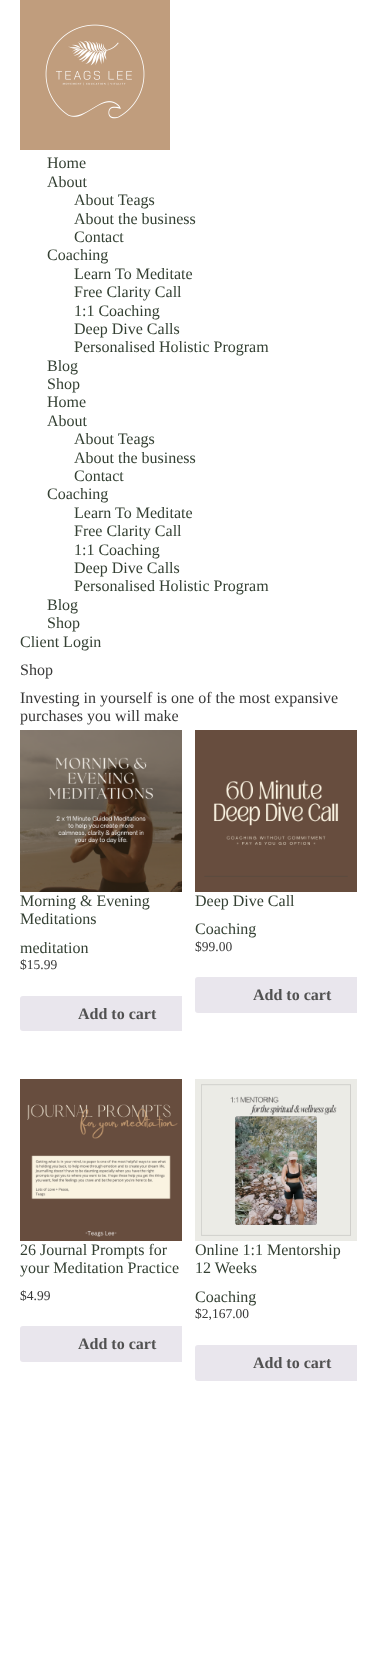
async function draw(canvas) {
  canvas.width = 377;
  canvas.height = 1676;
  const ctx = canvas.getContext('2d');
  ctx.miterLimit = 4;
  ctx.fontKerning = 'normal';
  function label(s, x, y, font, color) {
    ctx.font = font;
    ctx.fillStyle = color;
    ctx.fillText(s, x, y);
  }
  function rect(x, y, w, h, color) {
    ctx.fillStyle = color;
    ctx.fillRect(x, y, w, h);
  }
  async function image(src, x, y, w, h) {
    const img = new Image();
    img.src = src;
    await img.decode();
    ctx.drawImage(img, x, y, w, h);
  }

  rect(0, 0, 377, 1676, '#fff');
  await image('assets/img1.png', 20, 0, 150, 150);
  label('Home', 47, 168, '16px Liberation Serif', '#344033');
  label('About', 47, 187, '16px Liberation Serif', '#344033');
  label('About Teags', 74, 205, '16px Liberation Serif', '#344033');
  label('About the business', 74, 224, '16px Liberation Serif', '#344033');
  label('Contact', 74, 242, '16px Liberation Serif', '#344033');
  label('Coaching', 47, 260, '16px Liberation Serif', '#344033');
  label('Learn To Meditate', 74, 279, '16px Liberation Serif', '#344033');
  label('Free Clarity Call', 74, 297, '16px Liberation Serif', '#344033');
  label('1:1 Coaching', 74, 316, '16px Liberation Serif', '#344033');
  label('Deep Dive Calls', 74, 334, '16px Liberation Serif', '#344033');
  label('Personalised Holistic Program', 74, 352, '16px Liberation Serif', '#344033');
  label('Blog', 47, 371, '16px Liberation Serif', '#344033');
  label('Shop', 47, 389, '16px Liberation Serif', '#344033');
  label('Home', 47, 407, '16px Liberation Serif', '#344033');
  label('About', 47, 426, '16px Liberation Serif', '#344033');
  label('About Teags', 74, 444, '16px Liberation Serif', '#344033');
  label('About the business', 74, 463, '16px Liberation Serif', '#344033');
  label('Contact', 74, 481, '16px Liberation Serif', '#344033');
  label('Coaching', 47, 499, '16px Liberation Serif', '#344033');
  label('Learn To Meditate', 74, 518, '16px Liberation Serif', '#344033');
  label('Free Clarity Call', 74, 536, '16px Liberation Serif', '#344033');
  label('1:1 Coaching', 74, 555, '16px Liberation Serif', '#344033');
  label('Deep Dive Calls', 74, 573, '16px Liberation Serif', '#344033');
  label('Personalised Holistic Program', 74, 591, '16px Liberation Serif', '#344033');
  label('Blog', 47, 610, '16px Liberation Serif', '#344033');
  label('Shop', 47, 628, '16px Liberation Serif', '#344033');
  label('Client Login', 20, 647, '16px Liberation Serif', '#344033');
  label('Shop', 20, 675, '16px Liberation Serif', '#383838');
  label('Investing in yourself is one of the most expansive', 20, 703, '16px Liberation Serif', '#383838');
  label('purchases you will make', 20, 721, '16px Liberation Serif', '#383838');
  await image('assets/img2.png', 20, 730, 162, 162);
  label('Morning & Evening', 20, 906, '16px Liberation Serif', '#344033');
  label('Meditations', 20, 924, '16px Liberation Serif', '#344033');
  label('meditation', 20, 953, '16px Liberation Serif', '#344033');
  label('$15.99', 20, 969, '13.5px Liberation Serif', '#383838');
  ctx.fillStyle = '#e9e6ed';
  ctx.beginPath();
  ctx.roundRect(20, 996, 162, 35, [3, 0, 0, 3]);
  ctx.fill();
  label('Add to cart', 78, 1019, 'bold 16px Liberation Serif', '#515151');
  await image('assets/img3.png', 195, 730, 162, 162);
  label('Deep Dive Call', 195, 906, '16px Liberation Serif', '#344033');
  label('Coaching', 195, 934, '16px Liberation Serif', '#344033');
  label('$99.00', 195, 951, '13.5px Liberation Serif', '#383838');
  ctx.fillStyle = '#e9e6ed';
  ctx.beginPath();
  ctx.roundRect(195, 977, 162, 36, [3, 0, 0, 3]);
  ctx.fill();
  label('Add to cart', 253, 1000, 'bold 16px Liberation Serif', '#515151');
  await image('assets/img4.png', 20, 1079, 162, 162);
  label('26 Journal Prompts for', 20, 1255, '16px Liberation Serif', '#344033');
  label('your Meditation Practice', 20, 1273, '16px Liberation Serif', '#344033');
  label('$4.99', 20, 1300, '13.5px Liberation Serif', '#383838');
  ctx.fillStyle = '#e9e6ed';
  ctx.beginPath();
  ctx.roundRect(20, 1326, 162, 36, [3, 0, 0, 3]);
  ctx.fill();
  label('Add to cart', 78, 1349, 'bold 16px Liberation Serif', '#515151');
  await image('assets/img5.png', 195, 1079, 162, 162);
  label('Online 1:1 Mentorship', 195, 1255, '16px Liberation Serif', '#344033');
  label('12 Weeks', 195, 1273, '16px Liberation Serif', '#344033');
  label('Coaching', 195, 1302, '16px Liberation Serif', '#344033');
  label('$2,167.00', 195, 1318, '13.5px Liberation Serif', '#383838');
  ctx.fillStyle = '#e9e6ed';
  ctx.beginPath();
  ctx.roundRect(195, 1345, 162, 36, [3, 0, 0, 3]);
  ctx.fill();
  label('Add to cart', 253, 1368, 'bold 16px Liberation Serif', '#515151');
}

draw(document.querySelector('canvas'));
